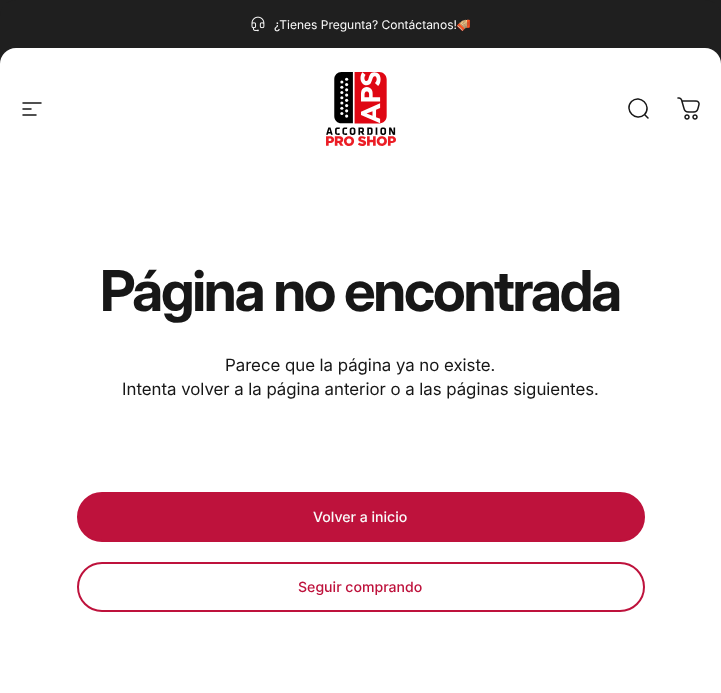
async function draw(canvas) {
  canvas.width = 721;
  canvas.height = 693;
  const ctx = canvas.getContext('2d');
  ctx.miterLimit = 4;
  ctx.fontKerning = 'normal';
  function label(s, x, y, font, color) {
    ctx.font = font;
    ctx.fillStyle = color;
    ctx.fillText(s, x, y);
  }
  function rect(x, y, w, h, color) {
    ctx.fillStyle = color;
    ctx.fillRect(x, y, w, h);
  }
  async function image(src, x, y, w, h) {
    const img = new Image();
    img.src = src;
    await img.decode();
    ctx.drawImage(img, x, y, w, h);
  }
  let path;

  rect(0, 0, 721, 693, '#fff');
  rect(0, 0, 721, 16, '#1f1f1f');
  ctx.beginPath();
  ctx.roundRect(0, 0, 721, 64, [16, 16, 0, 0]);
  ctx.fill();
  await image('assets/img1.png', 251, 16, 14, 16);
  label('¿Tienes Pregunta? Contáctanos!', 274, 29, '12px Inter', '#fafafa');
  label('🪗', 456, 29, '12px Noto Color Emoji', '#fafafa');
  ctx.fillStyle = '#fff';
  ctx.beginPath();
  ctx.roundRect(0, 48, 721, 122, [16, 16, 0, 0]);
  ctx.fill();
  path = new Path2D('M23 103H41M23 109H31M23 115H36');
  ctx.strokeStyle = '#171717';
  ctx.lineWidth = 1.5;
  ctx.lineCap = 'round';
  ctx.stroke(path);
  await image('assets/img2.png', 326, 72, 70, 74);
  path = new Path2D('M648 118L644.5 114.5M644.5 114.5C652.5 106 640 93.5 631.5 101.5C623.5 110 636 122.5 644.5 114.5Z');
  ctx.stroke(path);
  await image('assets/img3.png', 677, 97, 23, 23);
  ctx.letterSpacing = '-2.25px';
  label('Página no encontrada', 100, 311, 'bold 56.25px Inter', '#171717');
  ctx.letterSpacing = '0px';
  label('Parece que la página ya no existe.', 225, 371, '17px "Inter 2"', '#171717');
  label('Intenta volver a la página anterior o a las páginas siguientes.', 122, 395, '17px "Inter 2"', '#171717');
  ctx.fillStyle = '#be123c';
  ctx.beginPath();
  ctx.roundRect(78, 493, 566, 48, 24);
  ctx.fill();
  ctx.strokeStyle = '#be123c';
  ctx.lineWidth = 2;
  ctx.stroke();
  label('Volver a inicio', 313, 522, '500 14.1px Inter', '#fafafa');
  ctx.beginPath();
  ctx.roundRect(78, 563, 566, 48, 24);
  ctx.stroke();
  label('Seguir comprando', 298, 592, '500 14.1px Inter', '#be123c');
}

draw(document.querySelector('canvas'));
